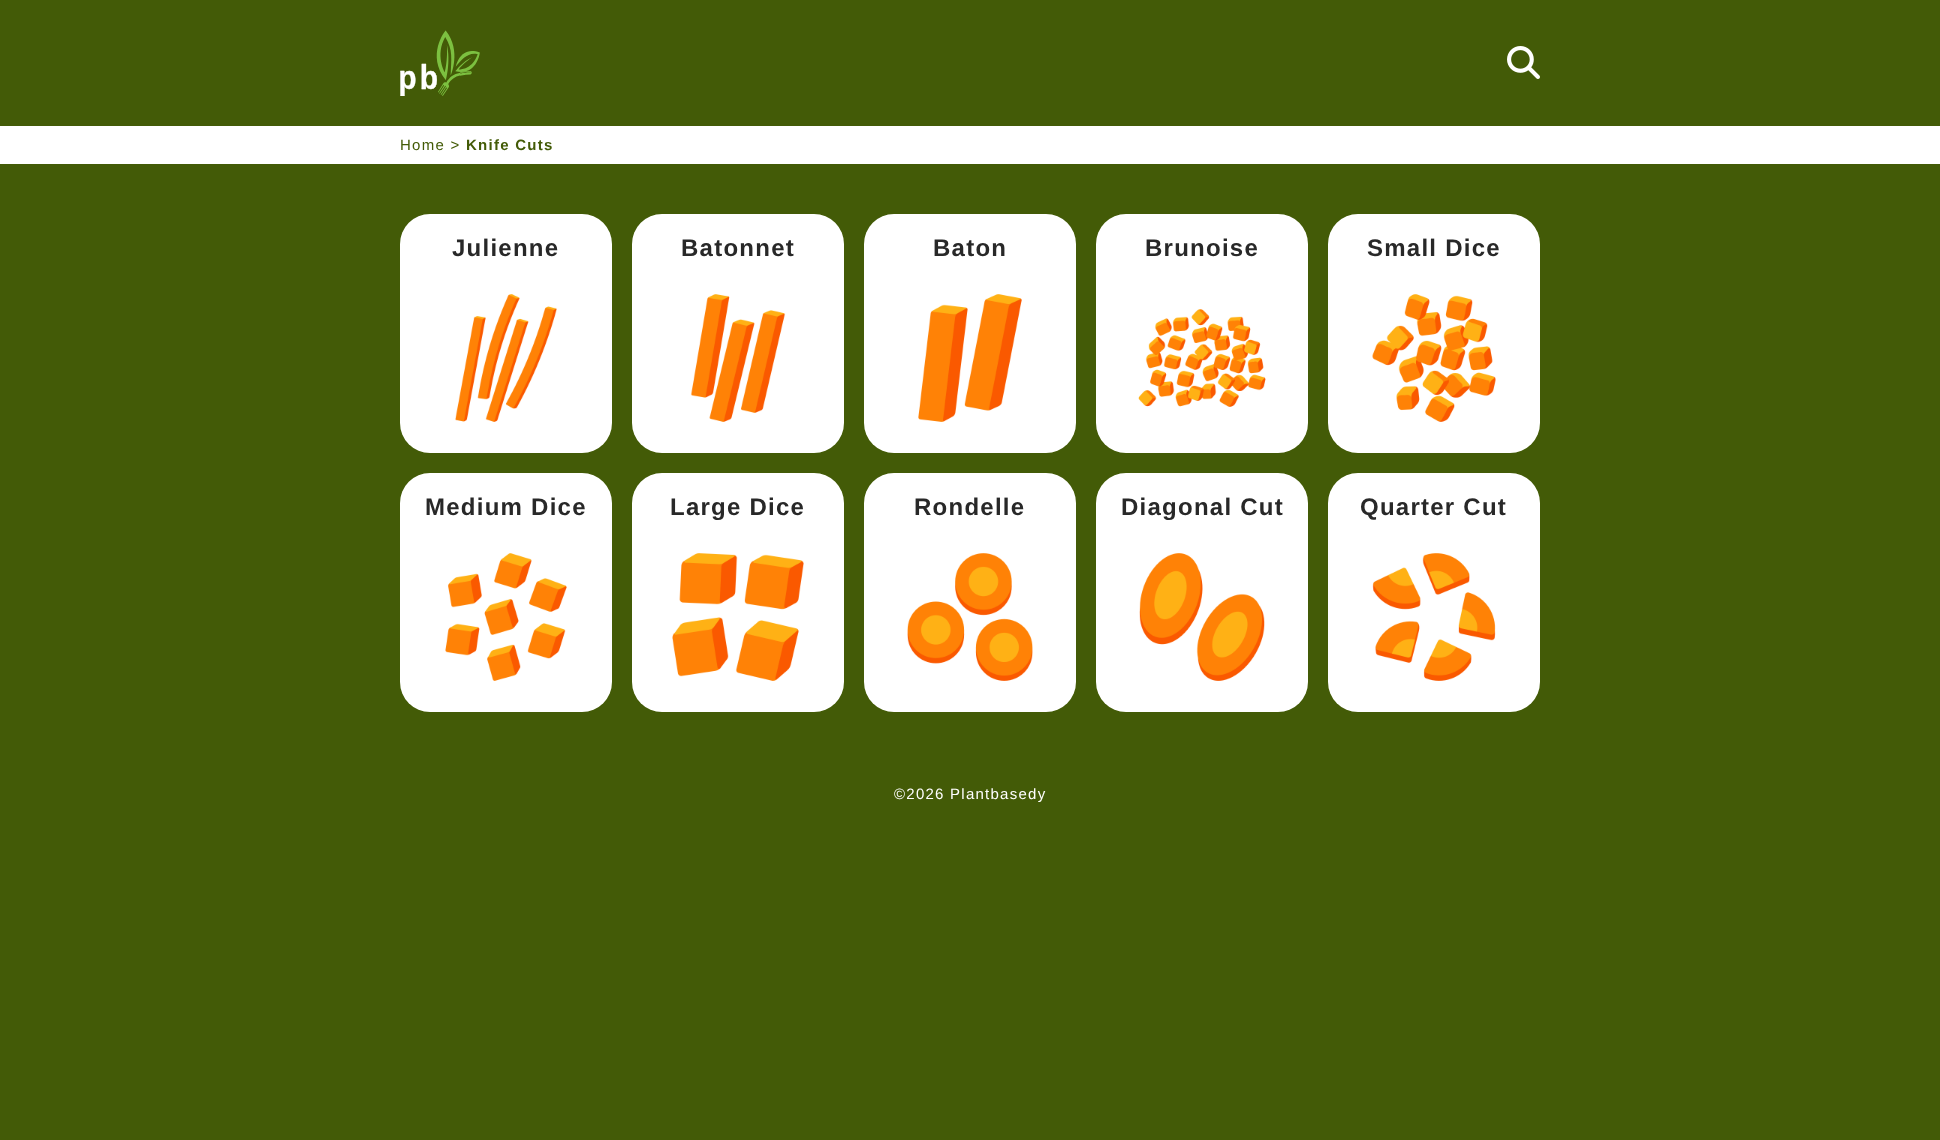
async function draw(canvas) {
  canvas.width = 1940;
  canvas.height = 1140;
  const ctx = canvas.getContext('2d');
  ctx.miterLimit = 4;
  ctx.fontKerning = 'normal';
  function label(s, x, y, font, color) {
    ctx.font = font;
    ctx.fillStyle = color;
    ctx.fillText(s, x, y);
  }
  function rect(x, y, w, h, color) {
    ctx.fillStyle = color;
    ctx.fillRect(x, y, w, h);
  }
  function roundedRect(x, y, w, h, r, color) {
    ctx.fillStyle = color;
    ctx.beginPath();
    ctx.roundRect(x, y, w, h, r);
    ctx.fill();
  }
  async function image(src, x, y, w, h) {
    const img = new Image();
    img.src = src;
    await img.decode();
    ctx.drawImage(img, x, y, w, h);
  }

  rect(0, 0, 1940, 1140, '#435b07');
  await image('assets/img1.png', 400, 30, 80, 66);
  await image('assets/img2.png', 1507, 46, 33, 33);
  rect(0, 126, 1940, 38, '#fff');
  ctx.letterSpacing = '1.25px';
  label('Home >', 400, 150, '15px Liberation Sans', '#435b07');
  label('Knife Cuts', 466, 150, 'bold 15px Liberation Sans', '#435b07');
  roundedRect(400, 214, 212, 239, 30, '#fff');
  label('Julienne', 452, 256, 'bold 24px Liberation Sans', '#282828');
  await image('assets/img3.png', 455, 294, 102, 128);
  roundedRect(632, 214, 212, 239, 30, '#fff');
  label('Batonnet', 681, 256, 'bold 24px Liberation Sans', '#282828');
  await image('assets/img4.png', 690, 294, 96, 128);
  roundedRect(864, 214, 212, 239, 30, '#fff');
  label('Baton', 933, 256, 'bold 24px Liberation Sans', '#282828');
  await image('assets/img5.png', 918, 294, 104, 128);
  roundedRect(1096, 214, 212, 239, 30, '#fff');
  label('Brunoise', 1145, 256, 'bold 24px Liberation Sans', '#282828');
  await image('assets/img6.png', 1138, 309, 128, 98);
  roundedRect(1328, 214, 212, 239, 30, '#fff');
  label('Small Dice', 1367, 256, 'bold 24px Liberation Sans', '#282828');
  await image('assets/img7.png', 1372, 294, 124, 128);
  roundedRect(400, 473, 212, 239, 30, '#fff');
  label('Medium Dice', 425, 515, 'bold 24px Liberation Sans', '#282828');
  await image('assets/img8.png', 445, 553, 122, 128);
  roundedRect(632, 473, 212, 239, 30, '#fff');
  label('Large Dice', 670, 515, 'bold 24px Liberation Sans', '#282828');
  await image('assets/img9.png', 672, 553, 132, 128);
  roundedRect(864, 473, 212, 239, 30, '#fff');
  label('Rondelle', 914, 515, 'bold 24px Liberation Sans', '#282828');
  await image('assets/img10.png', 907, 553, 126, 128);
  roundedRect(1096, 473, 212, 239, 30, '#fff');
  label('Diagonal Cut', 1121, 515, 'bold 24px Liberation Sans', '#282828');
  await image('assets/img11.png', 1139, 553, 126, 128);
  roundedRect(1328, 473, 212, 239, 30, '#fff');
  label('Quarter Cut', 1360, 515, 'bold 24px Liberation Sans', '#282828');
  await image('assets/img12.png', 1372, 553, 124, 128);
  label('©2026 Plantbasedy', 894, 799, '15px Liberation Sans', '#fff');
}

draw(document.querySelector('canvas'));
